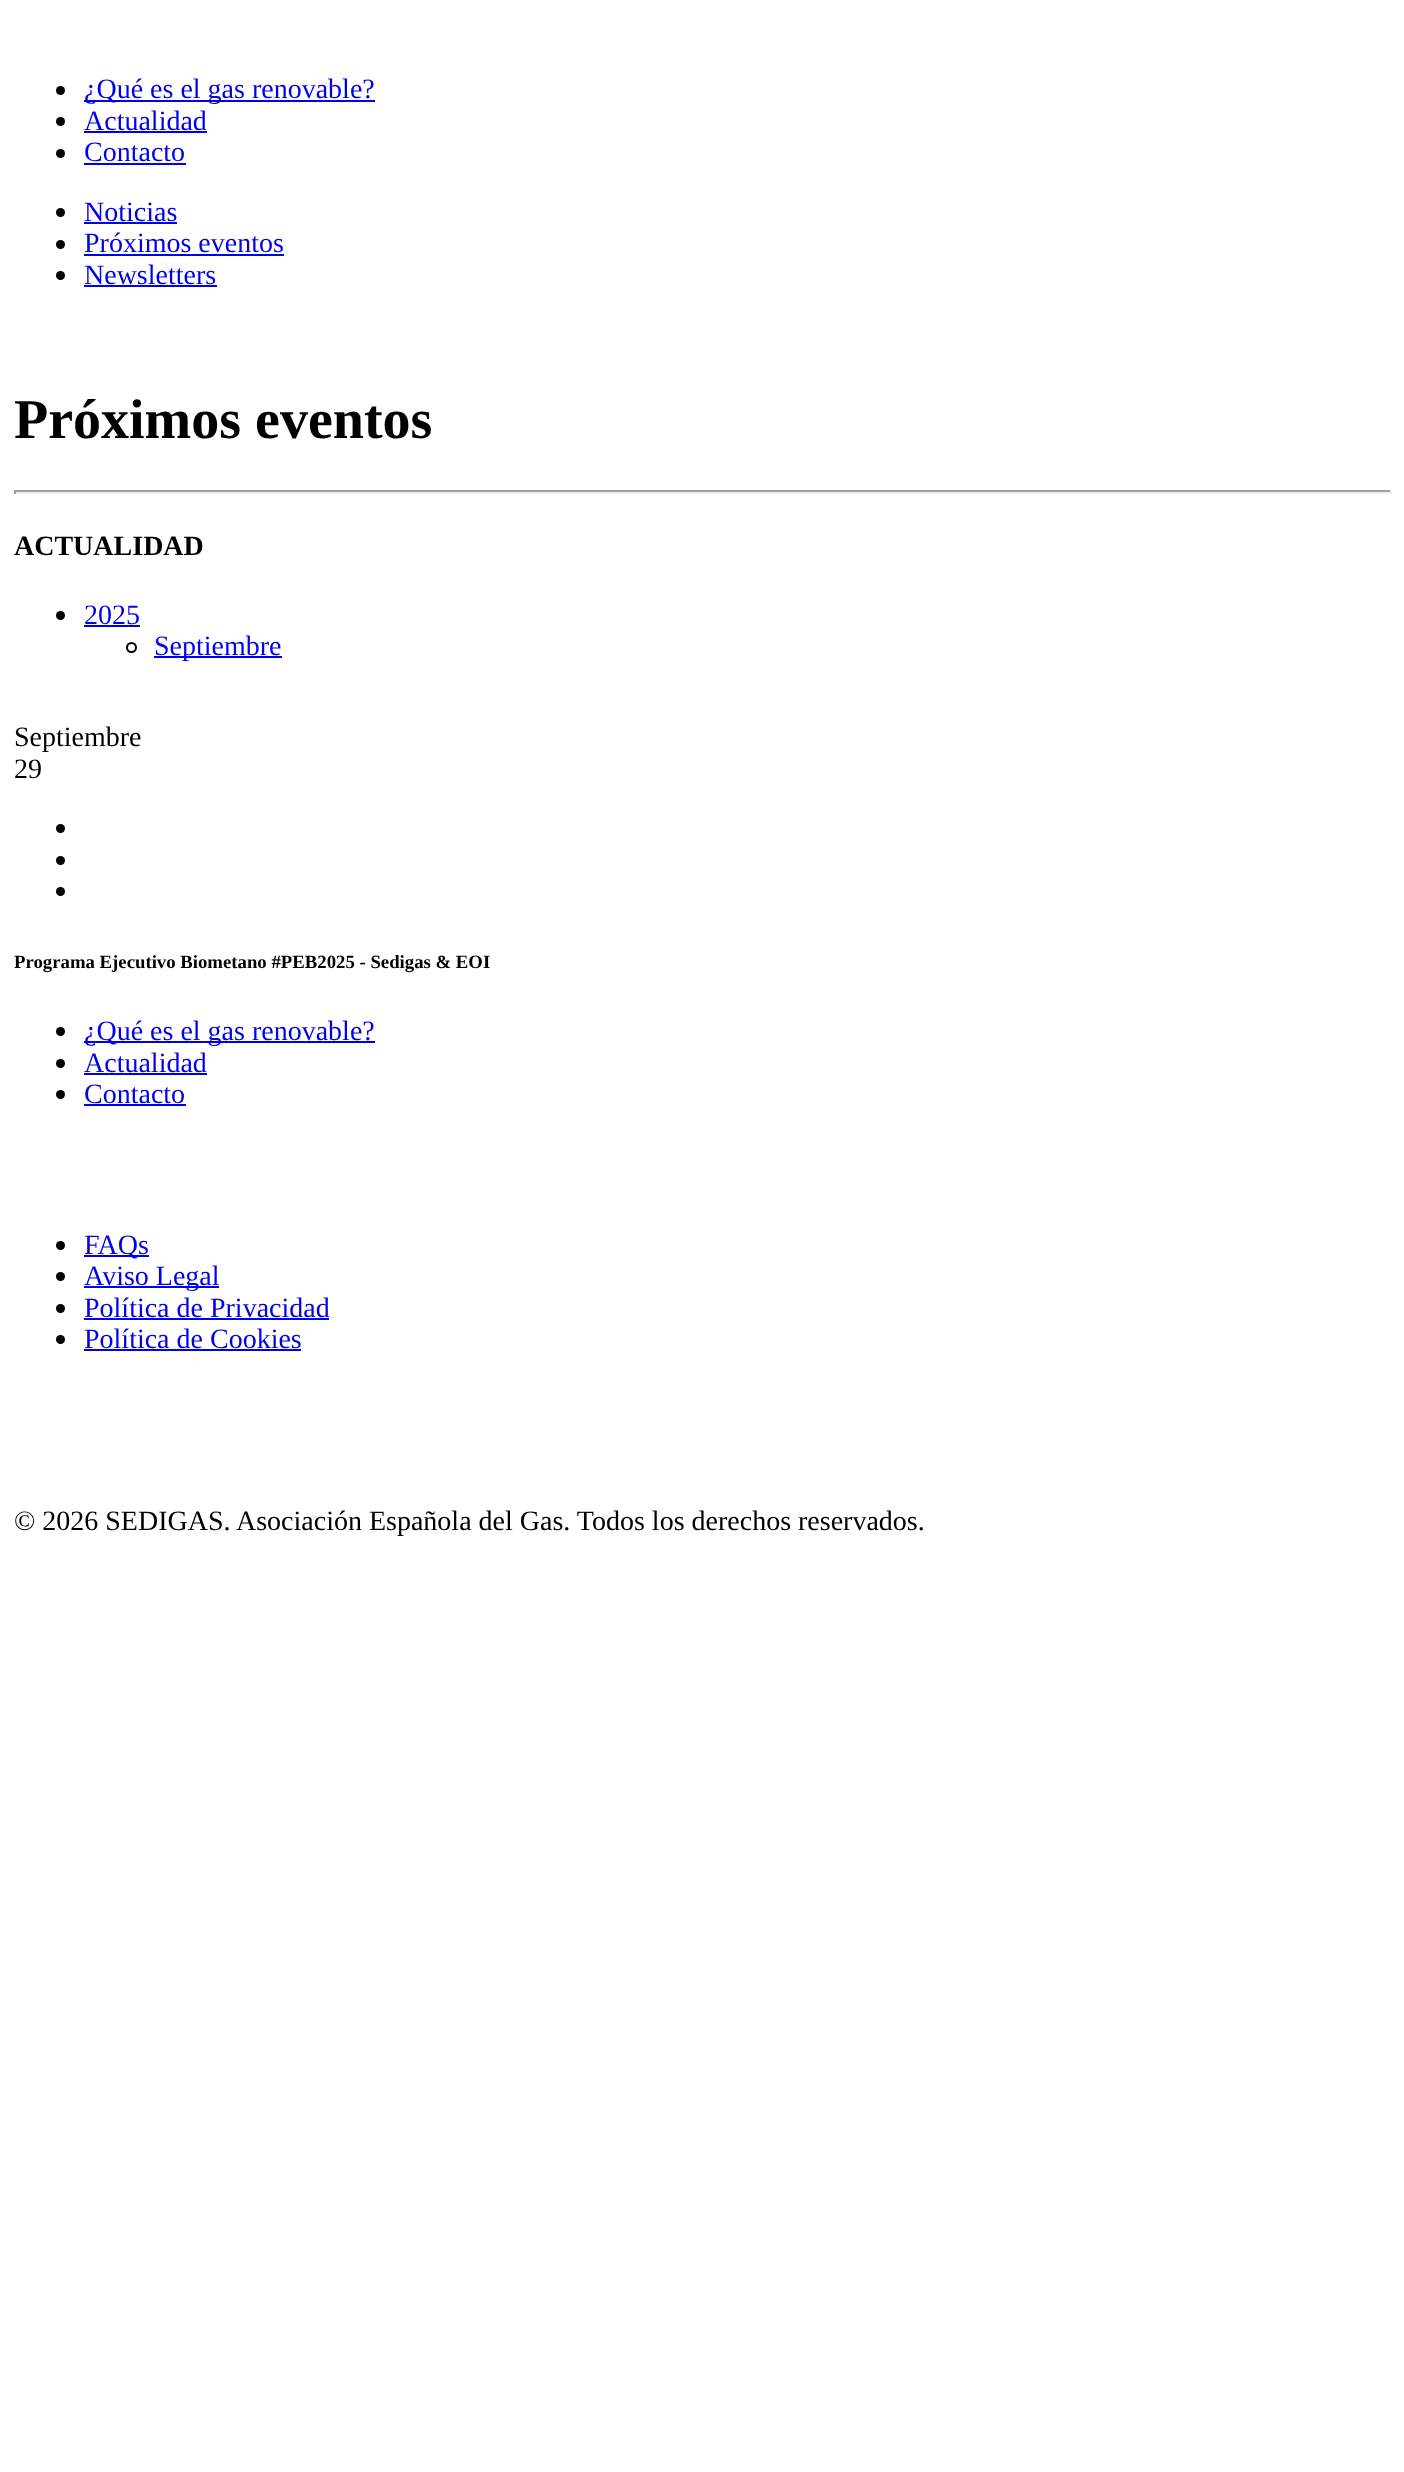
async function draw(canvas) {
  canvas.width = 1404;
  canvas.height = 2472;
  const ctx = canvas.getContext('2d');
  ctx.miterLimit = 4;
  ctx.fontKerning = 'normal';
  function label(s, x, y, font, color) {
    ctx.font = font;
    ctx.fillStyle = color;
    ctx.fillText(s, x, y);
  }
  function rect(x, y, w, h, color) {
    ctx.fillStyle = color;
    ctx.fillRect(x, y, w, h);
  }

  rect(0, 0, 1404, 2472, '#fff');
  ctx.fillStyle = '#000';
  ctx.beginPath();
  ctx.arc(60.5, 90.5, 4.5, 0, 2 * Math.PI);
  ctx.fill();
  rect(84, 100, 291, 2, '#00e');
  label('¿Qué es el gas renovable?', 84, 98, '28px Liberation Serif', '#00e');
  ctx.fillStyle = '#000';
  ctx.beginPath();
  ctx.arc(60.5, 121.5, 4.5, 0, 2 * Math.PI);
  ctx.fill();
  label('Actualidad', 84, 130, '28px Liberation Serif', '#00e');
  rect(84, 131, 123, 2, '#00e');
  ctx.fillStyle = '#000';
  ctx.beginPath();
  ctx.arc(60.5, 153.5, 4.5, 0, 2 * Math.PI);
  ctx.fill();
  label('Contacto', 84, 161, '28px Liberation Serif', '#00e');
  rect(84, 163, 102, 2, '#00e');
  ctx.fillStyle = '#000';
  ctx.beginPath();
  ctx.arc(60.5, 212.5, 4.5, 0, 2 * Math.PI);
  ctx.fill();
  label('Noticias', 84, 221, '28px Liberation Serif', '#00e');
  rect(84, 222, 93, 2, '#00e');
  ctx.fillStyle = '#000';
  ctx.beginPath();
  ctx.arc(60.5, 244.5, 4.5, 0, 2 * Math.PI);
  ctx.fill();
  label('Próximos eventos', 84, 252, '28px Liberation Serif', '#00e');
  rect(84, 254, 200, 2, '#00e');
  ctx.fillStyle = '#000';
  ctx.beginPath();
  ctx.arc(60.5, 275.5, 4.5, 0, 2 * Math.PI);
  ctx.fill();
  label('Newsletters', 84, 284, '28px Liberation Serif', '#00e');
  rect(84, 285, 133, 2, '#00e');
  label('Próximos eventos', 14, 438, 'bold 56px Liberation Serif', '#000');
  rect(14, 490, 1377, 2, '#9f9f9f');
  rect(1390, 490, 2, 4, '#eee');
  rect(14, 492, 1377, 2, '#eee');
  rect(14, 490, 2, 4, '#9f9f9f');
  label('ACTUALIDAD', 14, 555, 'bold 28px Liberation Serif', '#000');
  ctx.beginPath();
  ctx.arc(60.5, 615.5, 4.5, 0, 2 * Math.PI);
  ctx.fill();
  label('2025', 84, 624, '28px Liberation Serif', '#00e');
  rect(84, 625, 56, 2, '#00e');
  ctx.beginPath();
  ctx.arc(131.5, 647.5, 4.5, 0, 2 * Math.PI);
  ctx.strokeStyle = '#000';
  ctx.lineWidth = 2;
  ctx.stroke();
  rect(154, 656, 128, 2, '#00e');
  label('Septiembre', 154, 655, '28px Liberation Serif', '#00e');
  label('Septiembre', 14, 746, '28px Liberation Serif', '#000');
  label('29', 14, 778, '28px Liberation Serif', '#000');
  ctx.beginPath();
  ctx.arc(60.5, 828.5, 4.5, 0, 2 * Math.PI);
  ctx.fill();
  ctx.beginPath();
  ctx.arc(60.5, 860.5, 4.5, 0, 2 * Math.PI);
  ctx.fill();
  ctx.beginPath();
  ctx.arc(60.5, 891.5, 4.5, 0, 2 * Math.PI);
  ctx.fill();
  label('Programa Ejecutivo Biometano #PEB2025 - Sedigas & EOI', 14, 968, 'bold 18.75px Liberation Serif', '#000');
  ctx.beginPath();
  ctx.arc(60.5, 1031.5, 4.5, 0, 2 * Math.PI);
  ctx.fill();
  rect(84, 1041, 291, 2, '#00e');
  label('¿Qué es el gas renovable?', 84, 1040, '28px Liberation Serif', '#00e');
  ctx.fillStyle = '#000';
  ctx.beginPath();
  ctx.arc(60.5, 1063.5, 4.5, 0, 2 * Math.PI);
  ctx.fill();
  label('Actualidad', 84, 1072, '28px Liberation Serif', '#00e');
  rect(84, 1073, 123, 2, '#00e');
  ctx.fillStyle = '#000';
  ctx.beginPath();
  ctx.arc(60.5, 1094.5, 4.5, 0, 2 * Math.PI);
  ctx.fill();
  label('Contacto', 84, 1103, '28px Liberation Serif', '#00e');
  rect(84, 1104, 102, 2, '#00e');
  ctx.fillStyle = '#000';
  ctx.beginPath();
  ctx.arc(60.5, 1245.5, 4.5, 0, 2 * Math.PI);
  ctx.fill();
  rect(84, 1255, 65, 2, '#00e');
  label('FAQs', 84, 1254, '28px Liberation Serif', '#00e');
  ctx.fillStyle = '#000';
  ctx.beginPath();
  ctx.arc(60.5, 1276.5, 4.5, 0, 2 * Math.PI);
  ctx.fill();
  rect(84, 1286, 135, 2, '#00e');
  label('Aviso Legal', 84, 1285, '28px Liberation Serif', '#00e');
  ctx.fillStyle = '#000';
  ctx.beginPath();
  ctx.arc(60.5, 1308.5, 4.5, 0, 2 * Math.PI);
  ctx.fill();
  label('Política de Privacidad', 84, 1317, '28px Liberation Serif', '#00e');
  rect(84, 1318, 245, 2, '#00e');
  ctx.fillStyle = '#000';
  ctx.beginPath();
  ctx.arc(60.5, 1339.5, 4.5, 0, 2 * Math.PI);
  ctx.fill();
  label('Política de Cookies', 84, 1348, '28px Liberation Serif', '#00e');
  rect(84, 1349, 217, 2, '#00e');
  label('© 2026 SEDIGAS. Asociación Española del Gas. Todos los derechos reservados.', 14, 1530, '28px Liberation Serif', '#000');
}

draw(document.querySelector('canvas'));
